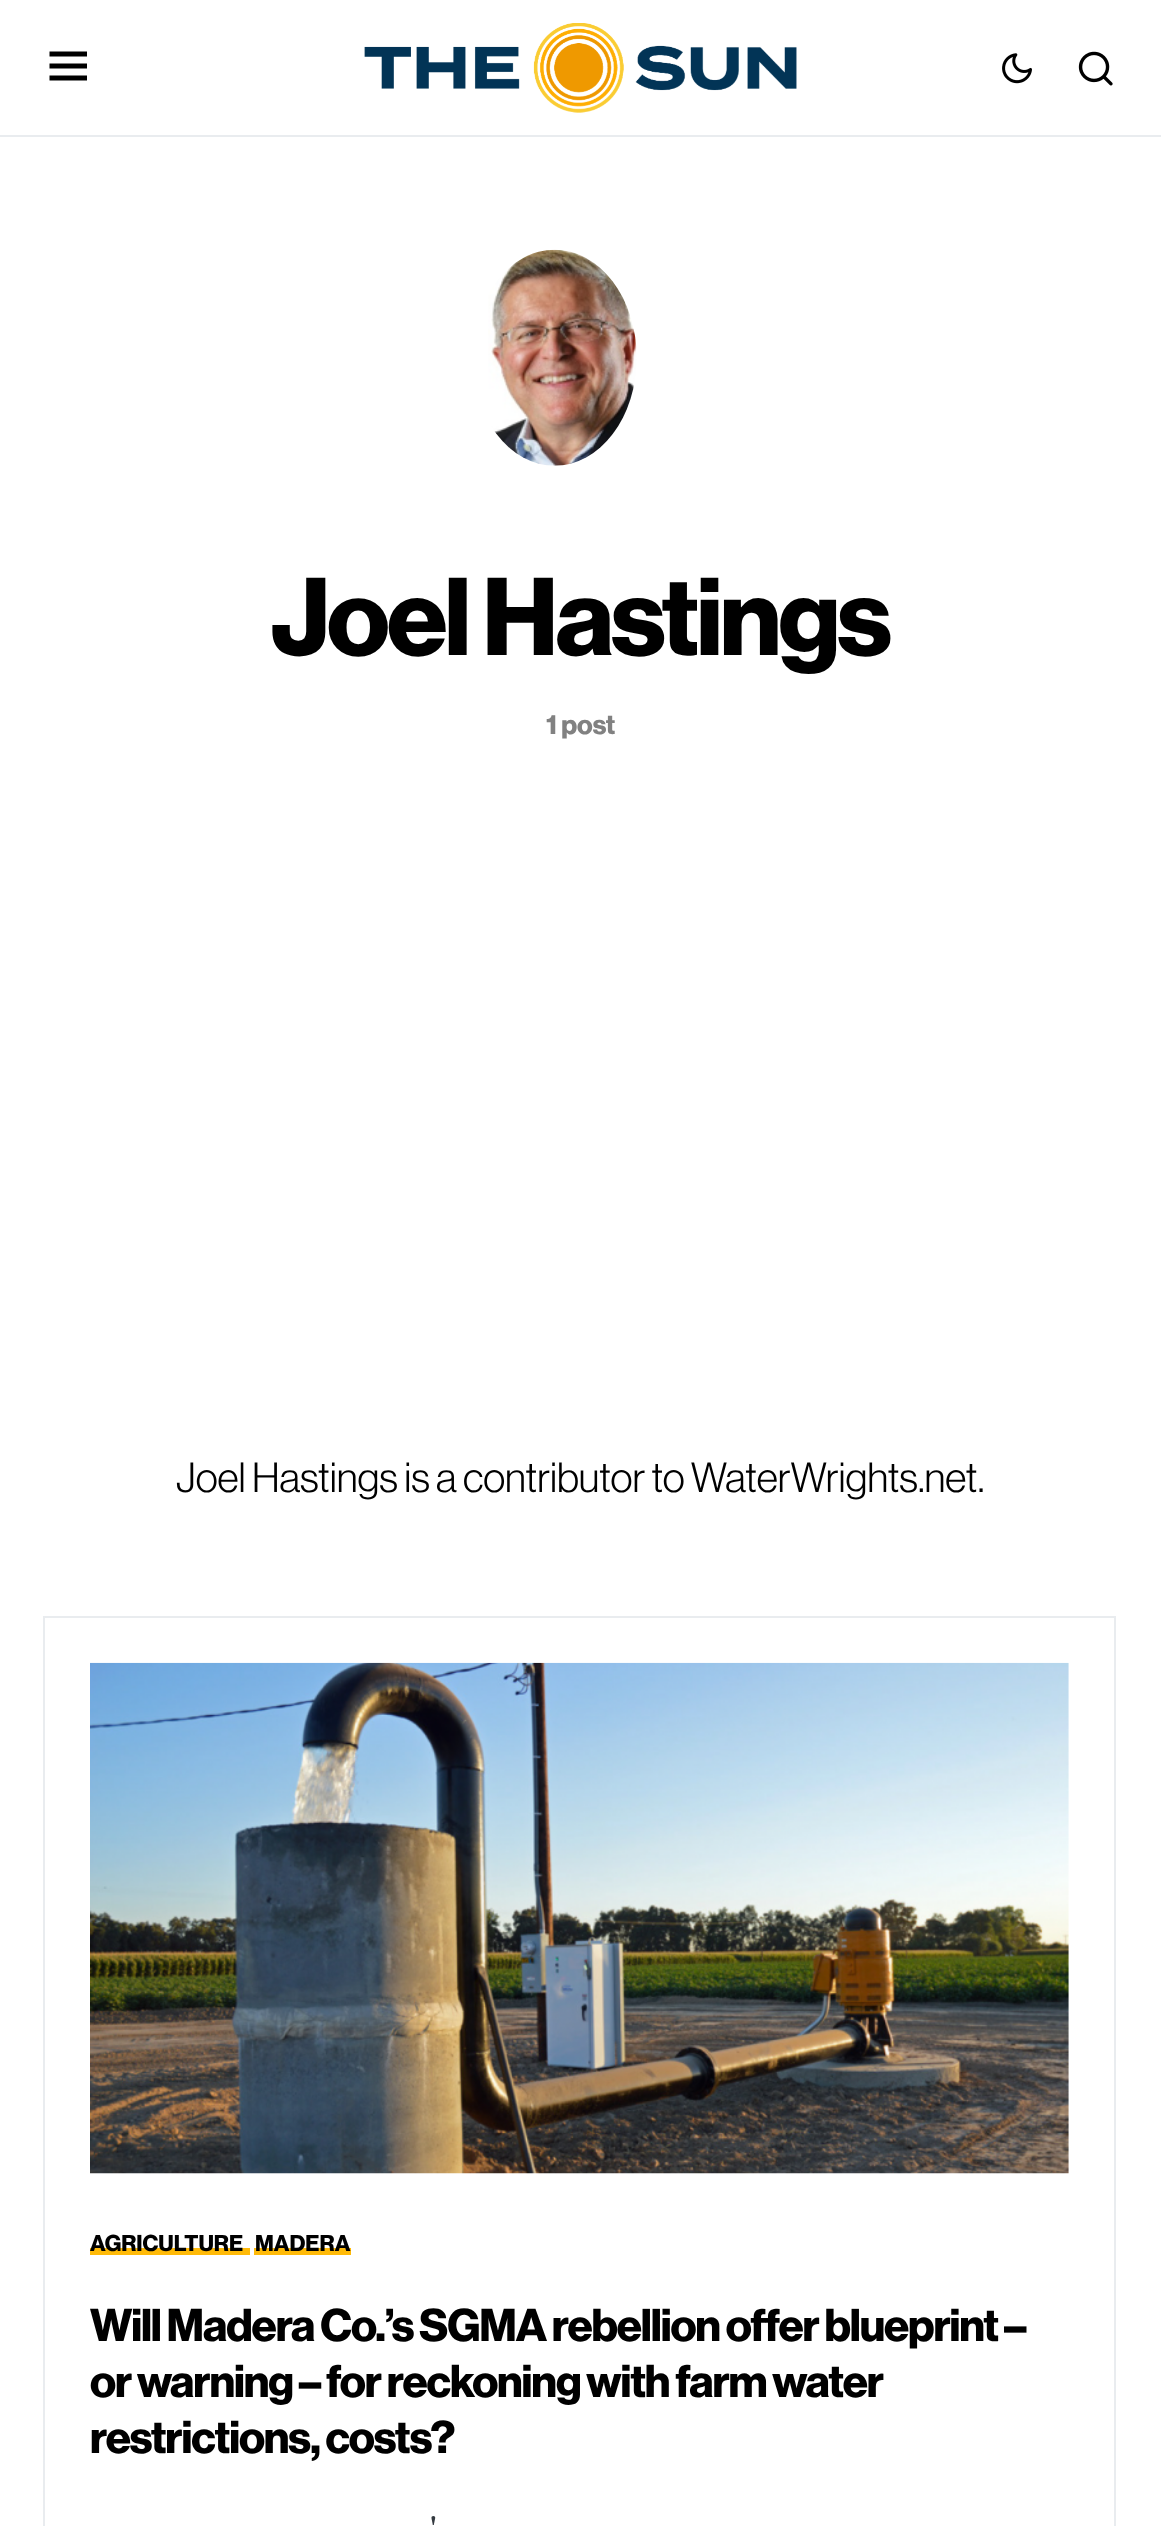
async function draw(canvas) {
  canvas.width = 1161;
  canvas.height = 2526;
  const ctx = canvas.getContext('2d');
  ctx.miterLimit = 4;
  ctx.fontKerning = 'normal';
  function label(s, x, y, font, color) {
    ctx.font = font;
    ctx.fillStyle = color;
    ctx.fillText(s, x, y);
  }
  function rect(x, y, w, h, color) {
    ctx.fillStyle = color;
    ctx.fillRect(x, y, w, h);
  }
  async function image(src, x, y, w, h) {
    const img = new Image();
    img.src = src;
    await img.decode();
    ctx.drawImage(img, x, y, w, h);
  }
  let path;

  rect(0, 0, 1161, 2526, '#fff');
  rect(0, 135, 1161, 2, '#e9ecef');
  ctx.fillStyle = '#000';
  path = new Path2D('M49.5 51.5H87V56.5H49.5ZM49.5 63.5H87V68.5H49.5ZM49.5 75.5H87V80.5H49.5Z');
  ctx.fill(path);
  await image('assets/img1.png', 364, 23, 433, 90);
  await image('assets/img2.png', 1002, 53, 30, 31);
  await image('assets/img3.png', 1078, 51, 35, 35);
  await image('assets/img4.png', 488, 249, 149, 217);
  ctx.letterSpacing = '-2.75px';
  label('Joel Hastings', 271, 655, 'bold 108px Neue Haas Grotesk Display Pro', '#000');
  ctx.letterSpacing = '0px';
  label('1 post', 546, 734, 'bold 27px Neue Haas Grotesk Display Pro', '#818181');
  label('Joel Hastings is a contributor to WaterWrights.net.', 176, 1492, '41.4px Neue Haas Grotesk Display Pro', '#000');
  ctx.strokeStyle = '#e9ecef';
  ctx.lineWidth = 2;
  ctx.strokeRect(44, 1617, 1071, 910);
  await image('assets/img5.png', 90, 1662, 979, 512);
  rect(90, 2248, 160, 7, '#ffba08');
  label('AGRICULTURE', 90, 2251, 'bold 22.5px Neue Haas Grotesk Display Pro', '#000');
  rect(254, 2248, 97, 7, '#ffba08');
  label('MADERA', 255, 2251, 'bold 22.5px Neue Haas Grotesk Display Pro', '#000');
  ctx.letterSpacing = '-1.12px';
  label('Will Madera Co.’s SGMA rebellion offer blueprint –', 90, 2341, 'bold 45px Neue Haas Grotesk Display Pro', '#000');
  label('or warning – for reckoning with farm water', 90, 2397, 'bold 45px Neue Haas Grotesk Display Pro', '#000');
  label('restrictions, costs?', 90, 2453, 'bold 45px Neue Haas Grotesk Display Pro', '#000');
  ctx.letterSpacing = '0px';
  label('\'', 430, 2541, '34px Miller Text', '#343a40');
}

draw(document.querySelector('canvas'));
